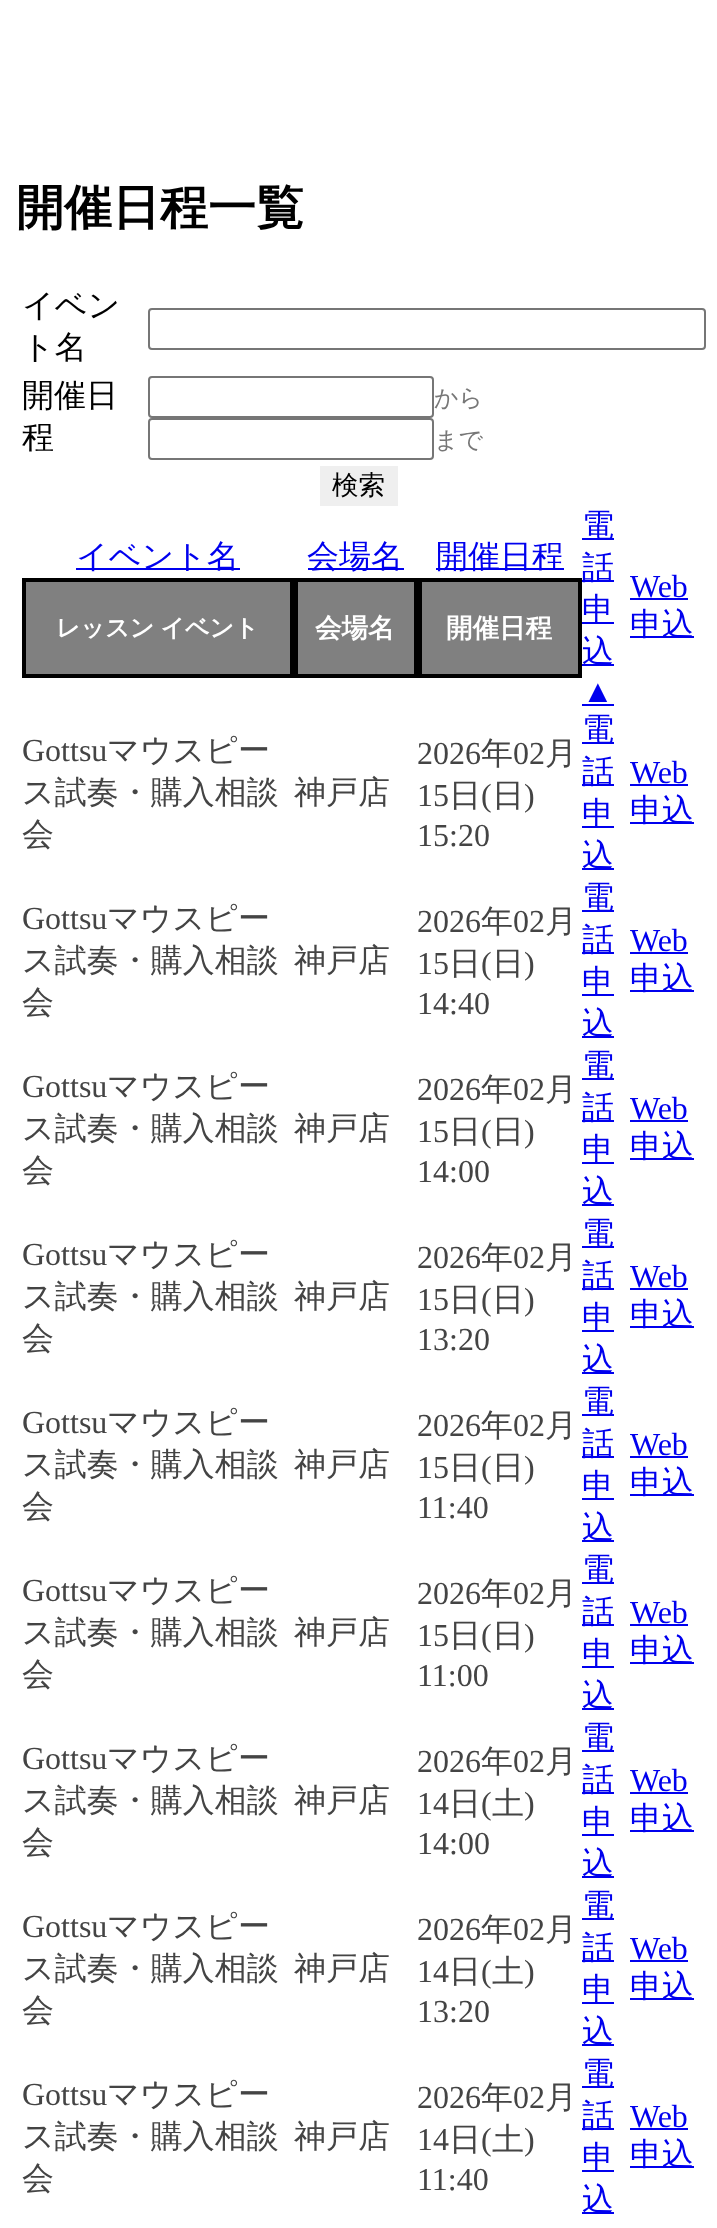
async function draw(canvas) {
  canvas.width = 717;
  canvas.height = 2228;
  const ctx = canvas.getContext('2d');
  ctx.miterLimit = 4;
  ctx.fontKerning = 'normal';
  function label(s, x, y, font, color) {
    ctx.font = font;
    ctx.fillStyle = color;
    ctx.fillText(s, x, y);
  }
  function rect(x, y, w, h, color) {
    ctx.fillStyle = color;
    ctx.fillRect(x, y, w, h);
  }

  rect(0, 0, 717, 2228, '#fff');
  label('開催日程一覧', 16, 224, 'bold 48px WenQuanYi Zen Hei', '#000');
  label('イベン', 22, 316, '500 32px WenQuanYi Zen Hei', '#000');
  label('ト名', 22, 358, '500 32px WenQuanYi Zen Hei', '#000');
  ctx.beginPath();
  ctx.roundRect(149, 309, 556, 40, 3);
  ctx.strokeStyle = '#767676';
  ctx.lineWidth = 2;
  ctx.stroke();
  label('開催日', 22, 406, '500 32px WenQuanYi Zen Hei', '#000');
  label('程', 22, 448, '500 32px WenQuanYi Zen Hei', '#000');
  ctx.beginPath();
  ctx.roundRect(149, 377, 284, 40, 3);
  ctx.stroke();
  label('から', 434, 406, '500 24px WenQuanYi Zen Hei', '#777');
  ctx.beginPath();
  ctx.roundRect(149, 419, 284, 40, 3);
  ctx.stroke();
  label('まで', 434, 448, '500 24px WenQuanYi Zen Hei', '#777');
  rect(320, 466, 78, 40, '#efefef');
  label('検索', 332, 494, '500 26.5px WenQuanYi Zen Hei', '#000');
  rect(76, 568, 164, 2, '#00e');
  label('イベント名', 76, 567, '500 32px WenQuanYi Zen Hei', '#00e');
  ctx.fillStyle = '#808080';
  ctx.beginPath();
  ctx.rect(24, 580, 268, 96);
  ctx.fill();
  ctx.strokeStyle = '#000';
  ctx.lineWidth = 4;
  ctx.stroke();
  ctx.wordSpacing = '-1px';
  label('レッスン イベント', 56, 636, 'bold 24px WenQuanYi Zen Hei', '#fff');
  rect(308, 568, 96, 2, '#00e');
  ctx.wordSpacing = '0px';
  label('会場名', 307, 567, '500 32px WenQuanYi Zen Hei', '#00e');
  ctx.fillStyle = '#808080';
  ctx.beginPath();
  ctx.rect(296, 580, 120, 96);
  ctx.fill();
  ctx.stroke();
  label('会場名', 315, 637, 'bold 26.5px WenQuanYi Zen Hei', '#fff');
  rect(436, 568, 128, 2, '#00e');
  label('開催日程', 436, 567, '500 32px WenQuanYi Zen Hei', '#00e');
  ctx.fillStyle = '#808080';
  ctx.beginPath();
  ctx.rect(420, 580, 160, 96);
  ctx.fill();
  ctx.stroke();
  label('開催日程', 446, 637, 'bold 26.5px WenQuanYi Zen Hei', '#fff');
  rect(582, 538, 32, 2, '#00e');
  label('電', 582, 536, '500 32px WenQuanYi Zen Hei', '#00e');
  rect(582, 580, 32, 2, '#00e');
  label('話', 582, 578, '500 32px WenQuanYi Zen Hei', '#00e');
  rect(582, 622, 32, 2, '#00e');
  label('申', 582, 620, '500 32px WenQuanYi Zen Hei', '#00e');
  rect(582, 664, 32, 2, '#00e');
  label('込', 582, 662, '500 32px WenQuanYi Zen Hei', '#00e');
  label('▲', 582, 702, '32px Liberation Serif', '#00e');
  rect(582, 704, 32, 2, '#00e');
  label('Web', 630, 597, '32px Liberation Serif', '#00e');
  rect(630, 598, 58, 2, '#00e');
  rect(630, 636, 64, 2, '#00e');
  label('申込', 630, 635, '500 32px WenQuanYi Zen Hei', '#00e');
  label('Gottsu', 22, 761, '32px Liberation Serif', '#444');
  label('マウスピー', 107, 761, '500 32px WenQuanYi Zen Hei', '#444');
  label('ス試奏・購入相談', 22, 803, '500 32px WenQuanYi Zen Hei', '#444');
  label('会', 22, 845, '500 32px WenQuanYi Zen Hei', '#444');
  label('神戸店', 294, 803, '500 32px WenQuanYi Zen Hei', '#444');
  label('2026', 417, 764, '32px Liberation Serif', '#444');
  label('年', 481, 764, '500 32px WenQuanYi Zen Hei', '#444');
  label('02', 513, 764, '32px Liberation Serif', '#444');
  label('月', 545, 764, '500 32px WenQuanYi Zen Hei', '#444');
  label('15', 417, 806, '32px Liberation Serif', '#444');
  label('日', 449, 806, '500 32px WenQuanYi Zen Hei', '#444');
  label('(', 481, 806, '32px Liberation Serif', '#444');
  label('日', 492, 806, '500 32px WenQuanYi Zen Hei', '#444');
  label(')', 524, 806, '32px Liberation Serif', '#444');
  label('15:20', 417, 846, '32px Liberation Serif', '#444');
  rect(582, 742, 32, 2, '#00e');
  label('電', 582, 740, '500 32px WenQuanYi Zen Hei', '#00e');
  rect(582, 784, 32, 2, '#00e');
  label('話', 582, 782, '500 32px WenQuanYi Zen Hei', '#00e');
  rect(582, 826, 32, 2, '#00e');
  label('申', 582, 824, '500 32px WenQuanYi Zen Hei', '#00e');
  rect(582, 868, 32, 2, '#00e');
  label('込', 582, 866, '500 32px WenQuanYi Zen Hei', '#00e');
  label('Web', 630, 783, '32px Liberation Serif', '#00e');
  rect(630, 784, 58, 2, '#00e');
  rect(630, 822, 64, 2, '#00e');
  label('申込', 630, 821, '500 32px WenQuanYi Zen Hei', '#00e');
  label('Gottsu', 22, 929, '32px Liberation Serif', '#444');
  label('マウスピー', 107, 929, '500 32px WenQuanYi Zen Hei', '#444');
  label('ス試奏・購入相談', 22, 971, '500 32px WenQuanYi Zen Hei', '#444');
  label('会', 22, 1013, '500 32px WenQuanYi Zen Hei', '#444');
  label('神戸店', 294, 971, '500 32px WenQuanYi Zen Hei', '#444');
  label('2026', 417, 932, '32px Liberation Serif', '#444');
  label('年', 481, 932, '500 32px WenQuanYi Zen Hei', '#444');
  label('02', 513, 932, '32px Liberation Serif', '#444');
  label('月', 545, 932, '500 32px WenQuanYi Zen Hei', '#444');
  label('15', 417, 974, '32px Liberation Serif', '#444');
  label('日', 449, 974, '500 32px WenQuanYi Zen Hei', '#444');
  label('(', 481, 974, '32px Liberation Serif', '#444');
  label('日', 492, 974, '500 32px WenQuanYi Zen Hei', '#444');
  label(')', 524, 974, '32px Liberation Serif', '#444');
  label('14:40', 417, 1014, '32px Liberation Serif', '#444');
  rect(582, 910, 32, 2, '#00e');
  label('電', 582, 908, '500 32px WenQuanYi Zen Hei', '#00e');
  rect(582, 952, 32, 2, '#00e');
  label('話', 582, 950, '500 32px WenQuanYi Zen Hei', '#00e');
  rect(582, 994, 32, 2, '#00e');
  label('申', 582, 992, '500 32px WenQuanYi Zen Hei', '#00e');
  rect(582, 1036, 32, 2, '#00e');
  label('込', 582, 1034, '500 32px WenQuanYi Zen Hei', '#00e');
  label('Web', 630, 951, '32px Liberation Serif', '#00e');
  rect(630, 952, 58, 2, '#00e');
  rect(630, 990, 64, 2, '#00e');
  label('申込', 630, 989, '500 32px WenQuanYi Zen Hei', '#00e');
  label('Gottsu', 22, 1097, '32px Liberation Serif', '#444');
  label('マウスピー', 107, 1097, '500 32px WenQuanYi Zen Hei', '#444');
  label('ス試奏・購入相談', 22, 1139, '500 32px WenQuanYi Zen Hei', '#444');
  label('会', 22, 1181, '500 32px WenQuanYi Zen Hei', '#444');
  label('神戸店', 294, 1139, '500 32px WenQuanYi Zen Hei', '#444');
  label('2026', 417, 1100, '32px Liberation Serif', '#444');
  label('年', 481, 1100, '500 32px WenQuanYi Zen Hei', '#444');
  label('02', 513, 1100, '32px Liberation Serif', '#444');
  label('月', 545, 1100, '500 32px WenQuanYi Zen Hei', '#444');
  label('15', 417, 1142, '32px Liberation Serif', '#444');
  label('日', 449, 1142, '500 32px WenQuanYi Zen Hei', '#444');
  label('(', 481, 1142, '32px Liberation Serif', '#444');
  label('日', 492, 1142, '500 32px WenQuanYi Zen Hei', '#444');
  label(')', 524, 1142, '32px Liberation Serif', '#444');
  label('14:00', 417, 1182, '32px Liberation Serif', '#444');
  rect(582, 1078, 32, 2, '#00e');
  label('電', 582, 1076, '500 32px WenQuanYi Zen Hei', '#00e');
  rect(582, 1120, 32, 2, '#00e');
  label('話', 582, 1118, '500 32px WenQuanYi Zen Hei', '#00e');
  rect(582, 1162, 32, 2, '#00e');
  label('申', 582, 1160, '500 32px WenQuanYi Zen Hei', '#00e');
  rect(582, 1204, 32, 2, '#00e');
  label('込', 582, 1202, '500 32px WenQuanYi Zen Hei', '#00e');
  label('Web', 630, 1119, '32px Liberation Serif', '#00e');
  rect(630, 1120, 58, 2, '#00e');
  rect(630, 1158, 64, 2, '#00e');
  label('申込', 630, 1157, '500 32px WenQuanYi Zen Hei', '#00e');
  label('Gottsu', 22, 1265, '32px Liberation Serif', '#444');
  label('マウスピー', 107, 1265, '500 32px WenQuanYi Zen Hei', '#444');
  label('ス試奏・購入相談', 22, 1307, '500 32px WenQuanYi Zen Hei', '#444');
  label('会', 22, 1349, '500 32px WenQuanYi Zen Hei', '#444');
  label('神戸店', 294, 1307, '500 32px WenQuanYi Zen Hei', '#444');
  label('2026', 417, 1268, '32px Liberation Serif', '#444');
  label('年', 481, 1268, '500 32px WenQuanYi Zen Hei', '#444');
  label('02', 513, 1268, '32px Liberation Serif', '#444');
  label('月', 545, 1268, '500 32px WenQuanYi Zen Hei', '#444');
  label('15', 417, 1310, '32px Liberation Serif', '#444');
  label('日', 449, 1310, '500 32px WenQuanYi Zen Hei', '#444');
  label('(', 481, 1310, '32px Liberation Serif', '#444');
  label('日', 492, 1310, '500 32px WenQuanYi Zen Hei', '#444');
  label(')', 524, 1310, '32px Liberation Serif', '#444');
  label('13:20', 417, 1350, '32px Liberation Serif', '#444');
  rect(582, 1246, 32, 2, '#00e');
  label('電', 582, 1244, '500 32px WenQuanYi Zen Hei', '#00e');
  rect(582, 1288, 32, 2, '#00e');
  label('話', 582, 1286, '500 32px WenQuanYi Zen Hei', '#00e');
  rect(582, 1330, 32, 2, '#00e');
  label('申', 582, 1328, '500 32px WenQuanYi Zen Hei', '#00e');
  rect(582, 1372, 32, 2, '#00e');
  label('込', 582, 1370, '500 32px WenQuanYi Zen Hei', '#00e');
  label('Web', 630, 1287, '32px Liberation Serif', '#00e');
  rect(630, 1288, 58, 2, '#00e');
  rect(630, 1326, 64, 2, '#00e');
  label('申込', 630, 1325, '500 32px WenQuanYi Zen Hei', '#00e');
  label('Gottsu', 22, 1433, '32px Liberation Serif', '#444');
  label('マウスピー', 107, 1433, '500 32px WenQuanYi Zen Hei', '#444');
  label('ス試奏・購入相談', 22, 1475, '500 32px WenQuanYi Zen Hei', '#444');
  label('会', 22, 1517, '500 32px WenQuanYi Zen Hei', '#444');
  label('神戸店', 294, 1475, '500 32px WenQuanYi Zen Hei', '#444');
  label('2026', 417, 1436, '32px Liberation Serif', '#444');
  label('年', 481, 1436, '500 32px WenQuanYi Zen Hei', '#444');
  label('02', 513, 1436, '32px Liberation Serif', '#444');
  label('月', 545, 1436, '500 32px WenQuanYi Zen Hei', '#444');
  label('15', 417, 1478, '32px Liberation Serif', '#444');
  label('日', 449, 1478, '500 32px WenQuanYi Zen Hei', '#444');
  label('(', 481, 1478, '32px Liberation Serif', '#444');
  label('日', 492, 1478, '500 32px WenQuanYi Zen Hei', '#444');
  label(')', 524, 1478, '32px Liberation Serif', '#444');
  label('11:40', 417, 1518, '32px Liberation Serif', '#444');
  rect(582, 1414, 32, 2, '#00e');
  label('電', 582, 1412, '500 32px WenQuanYi Zen Hei', '#00e');
  rect(582, 1456, 32, 2, '#00e');
  label('話', 582, 1454, '500 32px WenQuanYi Zen Hei', '#00e');
  rect(582, 1498, 32, 2, '#00e');
  label('申', 582, 1496, '500 32px WenQuanYi Zen Hei', '#00e');
  rect(582, 1540, 32, 2, '#00e');
  label('込', 582, 1538, '500 32px WenQuanYi Zen Hei', '#00e');
  label('Web', 630, 1455, '32px Liberation Serif', '#00e');
  rect(630, 1456, 58, 2, '#00e');
  rect(630, 1494, 64, 2, '#00e');
  label('申込', 630, 1493, '500 32px WenQuanYi Zen Hei', '#00e');
  label('Gottsu', 22, 1601, '32px Liberation Serif', '#444');
  label('マウスピー', 107, 1601, '500 32px WenQuanYi Zen Hei', '#444');
  label('ス試奏・購入相談', 22, 1643, '500 32px WenQuanYi Zen Hei', '#444');
  label('会', 22, 1685, '500 32px WenQuanYi Zen Hei', '#444');
  label('神戸店', 294, 1643, '500 32px WenQuanYi Zen Hei', '#444');
  label('2026', 417, 1604, '32px Liberation Serif', '#444');
  label('年', 481, 1604, '500 32px WenQuanYi Zen Hei', '#444');
  label('02', 513, 1604, '32px Liberation Serif', '#444');
  label('月', 545, 1604, '500 32px WenQuanYi Zen Hei', '#444');
  label('15', 417, 1646, '32px Liberation Serif', '#444');
  label('日', 449, 1646, '500 32px WenQuanYi Zen Hei', '#444');
  label('(', 481, 1646, '32px Liberation Serif', '#444');
  label('日', 492, 1646, '500 32px WenQuanYi Zen Hei', '#444');
  label(')', 524, 1646, '32px Liberation Serif', '#444');
  label('11:00', 417, 1686, '32px Liberation Serif', '#444');
  rect(582, 1582, 32, 2, '#00e');
  label('電', 582, 1580, '500 32px WenQuanYi Zen Hei', '#00e');
  rect(582, 1624, 32, 2, '#00e');
  label('話', 582, 1622, '500 32px WenQuanYi Zen Hei', '#00e');
  rect(582, 1666, 32, 2, '#00e');
  label('申', 582, 1664, '500 32px WenQuanYi Zen Hei', '#00e');
  rect(582, 1708, 32, 2, '#00e');
  label('込', 582, 1706, '500 32px WenQuanYi Zen Hei', '#00e');
  label('Web', 630, 1623, '32px Liberation Serif', '#00e');
  rect(630, 1624, 58, 2, '#00e');
  rect(630, 1662, 64, 2, '#00e');
  label('申込', 630, 1661, '500 32px WenQuanYi Zen Hei', '#00e');
  label('Gottsu', 22, 1769, '32px Liberation Serif', '#444');
  label('マウスピー', 107, 1769, '500 32px WenQuanYi Zen Hei', '#444');
  label('ス試奏・購入相談', 22, 1811, '500 32px WenQuanYi Zen Hei', '#444');
  label('会', 22, 1853, '500 32px WenQuanYi Zen Hei', '#444');
  label('神戸店', 294, 1811, '500 32px WenQuanYi Zen Hei', '#444');
  label('2026', 417, 1772, '32px Liberation Serif', '#444');
  label('年', 481, 1772, '500 32px WenQuanYi Zen Hei', '#444');
  label('02', 513, 1772, '32px Liberation Serif', '#444');
  label('月', 545, 1772, '500 32px WenQuanYi Zen Hei', '#444');
  label('14', 417, 1814, '32px Liberation Serif', '#444');
  label('日', 449, 1814, '500 32px WenQuanYi Zen Hei', '#444');
  label('(', 481, 1814, '32px Liberation Serif', '#444');
  label('土', 492, 1814, '500 32px WenQuanYi Zen Hei', '#444');
  label(')', 524, 1814, '32px Liberation Serif', '#444');
  label('14:00', 417, 1854, '32px Liberation Serif', '#444');
  rect(582, 1750, 32, 2, '#00e');
  label('電', 582, 1748, '500 32px WenQuanYi Zen Hei', '#00e');
  rect(582, 1792, 32, 2, '#00e');
  label('話', 582, 1790, '500 32px WenQuanYi Zen Hei', '#00e');
  rect(582, 1834, 32, 2, '#00e');
  label('申', 582, 1832, '500 32px WenQuanYi Zen Hei', '#00e');
  rect(582, 1876, 32, 2, '#00e');
  label('込', 582, 1874, '500 32px WenQuanYi Zen Hei', '#00e');
  label('Web', 630, 1791, '32px Liberation Serif', '#00e');
  rect(630, 1792, 58, 2, '#00e');
  rect(630, 1830, 64, 2, '#00e');
  label('申込', 630, 1829, '500 32px WenQuanYi Zen Hei', '#00e');
  label('Gottsu', 22, 1937, '32px Liberation Serif', '#444');
  label('マウスピー', 107, 1937, '500 32px WenQuanYi Zen Hei', '#444');
  label('ス試奏・購入相談', 22, 1979, '500 32px WenQuanYi Zen Hei', '#444');
  label('会', 22, 2021, '500 32px WenQuanYi Zen Hei', '#444');
  label('神戸店', 294, 1979, '500 32px WenQuanYi Zen Hei', '#444');
  label('2026', 417, 1940, '32px Liberation Serif', '#444');
  label('年', 481, 1940, '500 32px WenQuanYi Zen Hei', '#444');
  label('02', 513, 1940, '32px Liberation Serif', '#444');
  label('月', 545, 1940, '500 32px WenQuanYi Zen Hei', '#444');
  label('14', 417, 1982, '32px Liberation Serif', '#444');
  label('日', 449, 1982, '500 32px WenQuanYi Zen Hei', '#444');
  label('(', 481, 1982, '32px Liberation Serif', '#444');
  label('土', 492, 1982, '500 32px WenQuanYi Zen Hei', '#444');
  label(')', 524, 1982, '32px Liberation Serif', '#444');
  label('13:20', 417, 2022, '32px Liberation Serif', '#444');
  rect(582, 1918, 32, 2, '#00e');
  label('電', 582, 1916, '500 32px WenQuanYi Zen Hei', '#00e');
  rect(582, 1960, 32, 2, '#00e');
  label('話', 582, 1958, '500 32px WenQuanYi Zen Hei', '#00e');
  rect(582, 2002, 32, 2, '#00e');
  label('申', 582, 2000, '500 32px WenQuanYi Zen Hei', '#00e');
  rect(582, 2044, 32, 2, '#00e');
  label('込', 582, 2042, '500 32px WenQuanYi Zen Hei', '#00e');
  label('Web', 630, 1959, '32px Liberation Serif', '#00e');
  rect(630, 1960, 58, 2, '#00e');
  rect(630, 1998, 64, 2, '#00e');
  label('申込', 630, 1997, '500 32px WenQuanYi Zen Hei', '#00e');
  label('Gottsu', 22, 2105, '32px Liberation Serif', '#444');
  label('マウスピー', 107, 2105, '500 32px WenQuanYi Zen Hei', '#444');
  label('ス試奏・購入相談', 22, 2147, '500 32px WenQuanYi Zen Hei', '#444');
  label('会', 22, 2189, '500 32px WenQuanYi Zen Hei', '#444');
  label('神戸店', 294, 2147, '500 32px WenQuanYi Zen Hei', '#444');
  label('2026', 417, 2108, '32px Liberation Serif', '#444');
  label('年', 481, 2108, '500 32px WenQuanYi Zen Hei', '#444');
  label('02', 513, 2108, '32px Liberation Serif', '#444');
  label('月', 545, 2108, '500 32px WenQuanYi Zen Hei', '#444');
  label('14', 417, 2150, '32px Liberation Serif', '#444');
  label('日', 449, 2150, '500 32px WenQuanYi Zen Hei', '#444');
  label('(', 481, 2150, '32px Liberation Serif', '#444');
  label('土', 492, 2150, '500 32px WenQuanYi Zen Hei', '#444');
  label(')', 524, 2150, '32px Liberation Serif', '#444');
  label('11:40', 417, 2190, '32px Liberation Serif', '#444');
  rect(582, 2086, 32, 2, '#00e');
  label('電', 582, 2084, '500 32px WenQuanYi Zen Hei', '#00e');
  rect(582, 2128, 32, 2, '#00e');
  label('話', 582, 2126, '500 32px WenQuanYi Zen Hei', '#00e');
  rect(582, 2170, 32, 2, '#00e');
  label('申', 582, 2168, '500 32px WenQuanYi Zen Hei', '#00e');
  rect(582, 2212, 32, 2, '#00e');
  label('込', 582, 2210, '500 32px WenQuanYi Zen Hei', '#00e');
  label('Web', 630, 2127, '32px Liberation Serif', '#00e');
  rect(630, 2128, 58, 2, '#00e');
  rect(630, 2166, 64, 2, '#00e');
  label('申込', 630, 2165, '500 32px WenQuanYi Zen Hei', '#00e');
}

draw(document.querySelector('canvas'));
